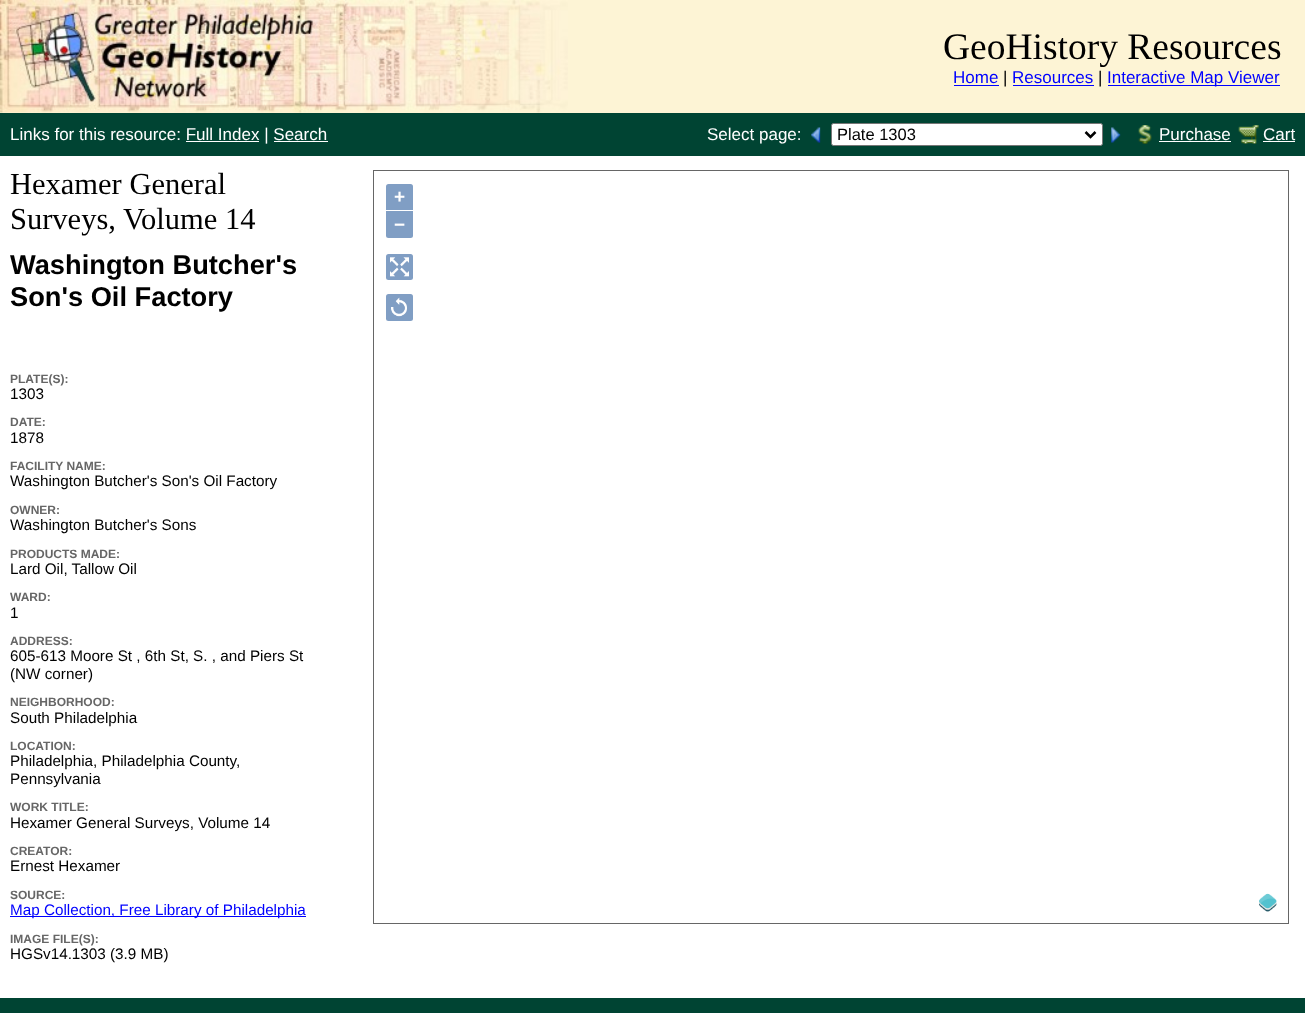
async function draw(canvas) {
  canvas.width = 1305;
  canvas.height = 1013;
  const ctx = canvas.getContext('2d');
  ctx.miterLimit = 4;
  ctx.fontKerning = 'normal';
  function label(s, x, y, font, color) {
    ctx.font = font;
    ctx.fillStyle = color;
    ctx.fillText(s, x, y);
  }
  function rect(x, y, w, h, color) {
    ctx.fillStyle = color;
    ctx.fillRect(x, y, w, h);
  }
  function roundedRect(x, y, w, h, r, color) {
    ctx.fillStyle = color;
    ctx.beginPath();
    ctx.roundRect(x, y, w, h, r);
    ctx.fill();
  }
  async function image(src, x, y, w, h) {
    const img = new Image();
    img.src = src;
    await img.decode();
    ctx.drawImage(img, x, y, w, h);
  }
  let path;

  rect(0, 0, 1305, 1013, '#fff');
  rect(0, 0, 1305, 113, '#fdf4d5');
  await image('assets/img1.png', 0, 0, 568, 113);
  label('GeoHistory Resources', 943, 59, '37.5px Liberation Serif', '#000');
  label('Home', 953, 83, '17px Liberation Sans', '#00f');
  rect(954, 85, 45, 1, '#00f');
  label('|', 1003, 83, '17px Liberation Sans', '#000');
  label('Resources', 1012, 83, '17px Liberation Sans', '#00f');
  rect(1013, 85, 81, 1, '#00f');
  label('|', 1098, 83, '17px Liberation Sans', '#000');
  rect(1108, 85, 172, 1, '#00f');
  label('Interactive Map Viewer', 1107, 83, '17px Liberation Sans', '#00f');
  rect(0, 113, 1305, 43, '#043');
  label('Links for this resource: Full Index | Search', 10, 140, '17px Liberation Sans', '#fff');
  rect(186, 141, 73, 1, '#fff');
  rect(274, 141, 54, 1, '#fff');
  label('Select page:', 707, 140, '17px Liberation Sans', '#fff');
  await image('assets/img2.png', 811, 127, 10, 16);
  ctx.beginPath();
  ctx.roundRect(831.5, 123.5, 271, 22, 2);
  ctx.fill();
  ctx.strokeStyle = '#767676';
  ctx.stroke();
  path = new Path2D('M1085.5 132L1090.5 137L1095.5 132');
  ctx.strokeStyle = '#000';
  ctx.lineWidth = 2.5;
  ctx.stroke(path);
  label('Plate 1303', 837, 140, '16.5px Liberation Sans', '#000');
  await image('assets/img3.png', 1111, 127, 10, 16);
  await image('assets/img4.png', 1138, 125, 14, 19);
  label('Purchase', 1159, 140, '17px Liberation Sans', '#fff');
  rect(1159, 141, 72, 1, '#fff');
  await image('assets/img5.png', 1238, 125, 21, 19);
  label('Cart', 1263, 140, '17px Liberation Sans', '#fff');
  rect(1263, 141, 32, 1, '#fff');
  label('Hexamer General', 10, 194, '30.5px Liberation Serif', '#000');
  label('Surveys, Volume 14', 10, 229, '30.5px Liberation Serif', '#000');
  label('Washington Butcher\'s', 10, 274, 'bold 27.25px Liberation Sans', '#000');
  label('Son\'s Oil Factory', 10, 306, 'bold 27.25px Liberation Sans', '#000');
  label('PLATE(S):', 10, 383, 'bold 12px Liberation Sans', '#666');
  label('1303', 10, 399, '15.25px Liberation Sans', '#000');
  label('DATE:', 10, 426, 'bold 12px Liberation Sans', '#666');
  label('1878', 10, 443, '15.25px Liberation Sans', '#000');
  label('FACILITY NAME:', 10, 470, 'bold 12px Liberation Sans', '#666');
  label('Washington Butcher\'s Son\'s Oil Factory', 10, 486, '15.25px Liberation Sans', '#000');
  label('OWNER:', 10, 514, 'bold 12px Liberation Sans', '#666');
  label('Washington Butcher\'s Sons', 10, 530, '15.25px Liberation Sans', '#000');
  label('PRODUCTS MADE:', 10, 558, 'bold 12px Liberation Sans', '#666');
  label('Lard Oil, Tallow Oil', 10, 574, '15.25px Liberation Sans', '#000');
  label('WARD:', 10, 601, 'bold 12px Liberation Sans', '#666');
  label('1', 10, 618, '15.25px Liberation Sans', '#000');
  label('ADDRESS:', 10, 645, 'bold 12px Liberation Sans', '#666');
  label('605-613 Moore St , 6th St, S. , and Piers St', 10, 661, '15.25px Liberation Sans', '#000');
  label('(NW corner)', 10, 679, '15.25px Liberation Sans', '#000');
  label('NEIGHBORHOOD:', 10, 706, 'bold 12px Liberation Sans', '#666');
  label('South Philadelphia', 10, 723, '15.25px Liberation Sans', '#000');
  label('LOCATION:', 10, 750, 'bold 12px Liberation Sans', '#666');
  label('Philadelphia, Philadelphia County,', 10, 766, '15.25px Liberation Sans', '#000');
  label('Pennsylvania', 10, 784, '15.25px Liberation Sans', '#000');
  label('WORK TITLE:', 10, 811, 'bold 12px Liberation Sans', '#666');
  label('Hexamer General Surveys, Volume 14', 10, 828, '15.25px Liberation Sans', '#000');
  label('CREATOR:', 10, 855, 'bold 12px Liberation Sans', '#666');
  label('Ernest Hexamer', 10, 871, '15.25px Liberation Sans', '#000');
  label('SOURCE:', 10, 899, 'bold 12px Liberation Sans', '#666');
  rect(10, 916, 296, 1, '#00f');
  label('Map Collection, Free Library of Philadelphia', 10, 915, '15.25px Liberation Sans', '#00f');
  label('IMAGE FILE(S):', 10, 943, 'bold 12px Liberation Sans', '#666');
  label('HGSv14.1303 (3.9 MB)', 10, 959, '15.25px Liberation Sans', '#000');
  ctx.strokeStyle = '#666';
  ctx.lineWidth = 1;
  ctx.strokeRect(373.5, 170.5, 915, 753);
  ctx.fillStyle = '#809ec4';
  ctx.beginPath();
  ctx.roundRect(386, 184, 27, 26, [2.5, 2.5, 0, 0]);
  ctx.fill();
  label('+', 394, 203, 'bold 19px Liberation Sans', '#fff');
  ctx.fillStyle = '#809ec4';
  ctx.beginPath();
  ctx.roundRect(386, 211, 27, 27, [0, 0, 2.5, 2.5]);
  ctx.fill();
  label('−', 394, 231, 'bold 19px Liberation Sans', '#fff');
  roundedRect(386, 254, 27, 26, 2.5, '#809ec4');
  await image('assets/img6.png', 390, 257, 19, 20);
  roundedRect(386, 294, 27, 27, 2.5, '#809ec4');
  await image('assets/img7.png', 391, 297, 16, 20);
  await image('assets/img8.png', 1259, 893, 18, 19);
  rect(0, 998, 1305, 15, '#043');
}

draw(document.querySelector('canvas'));
